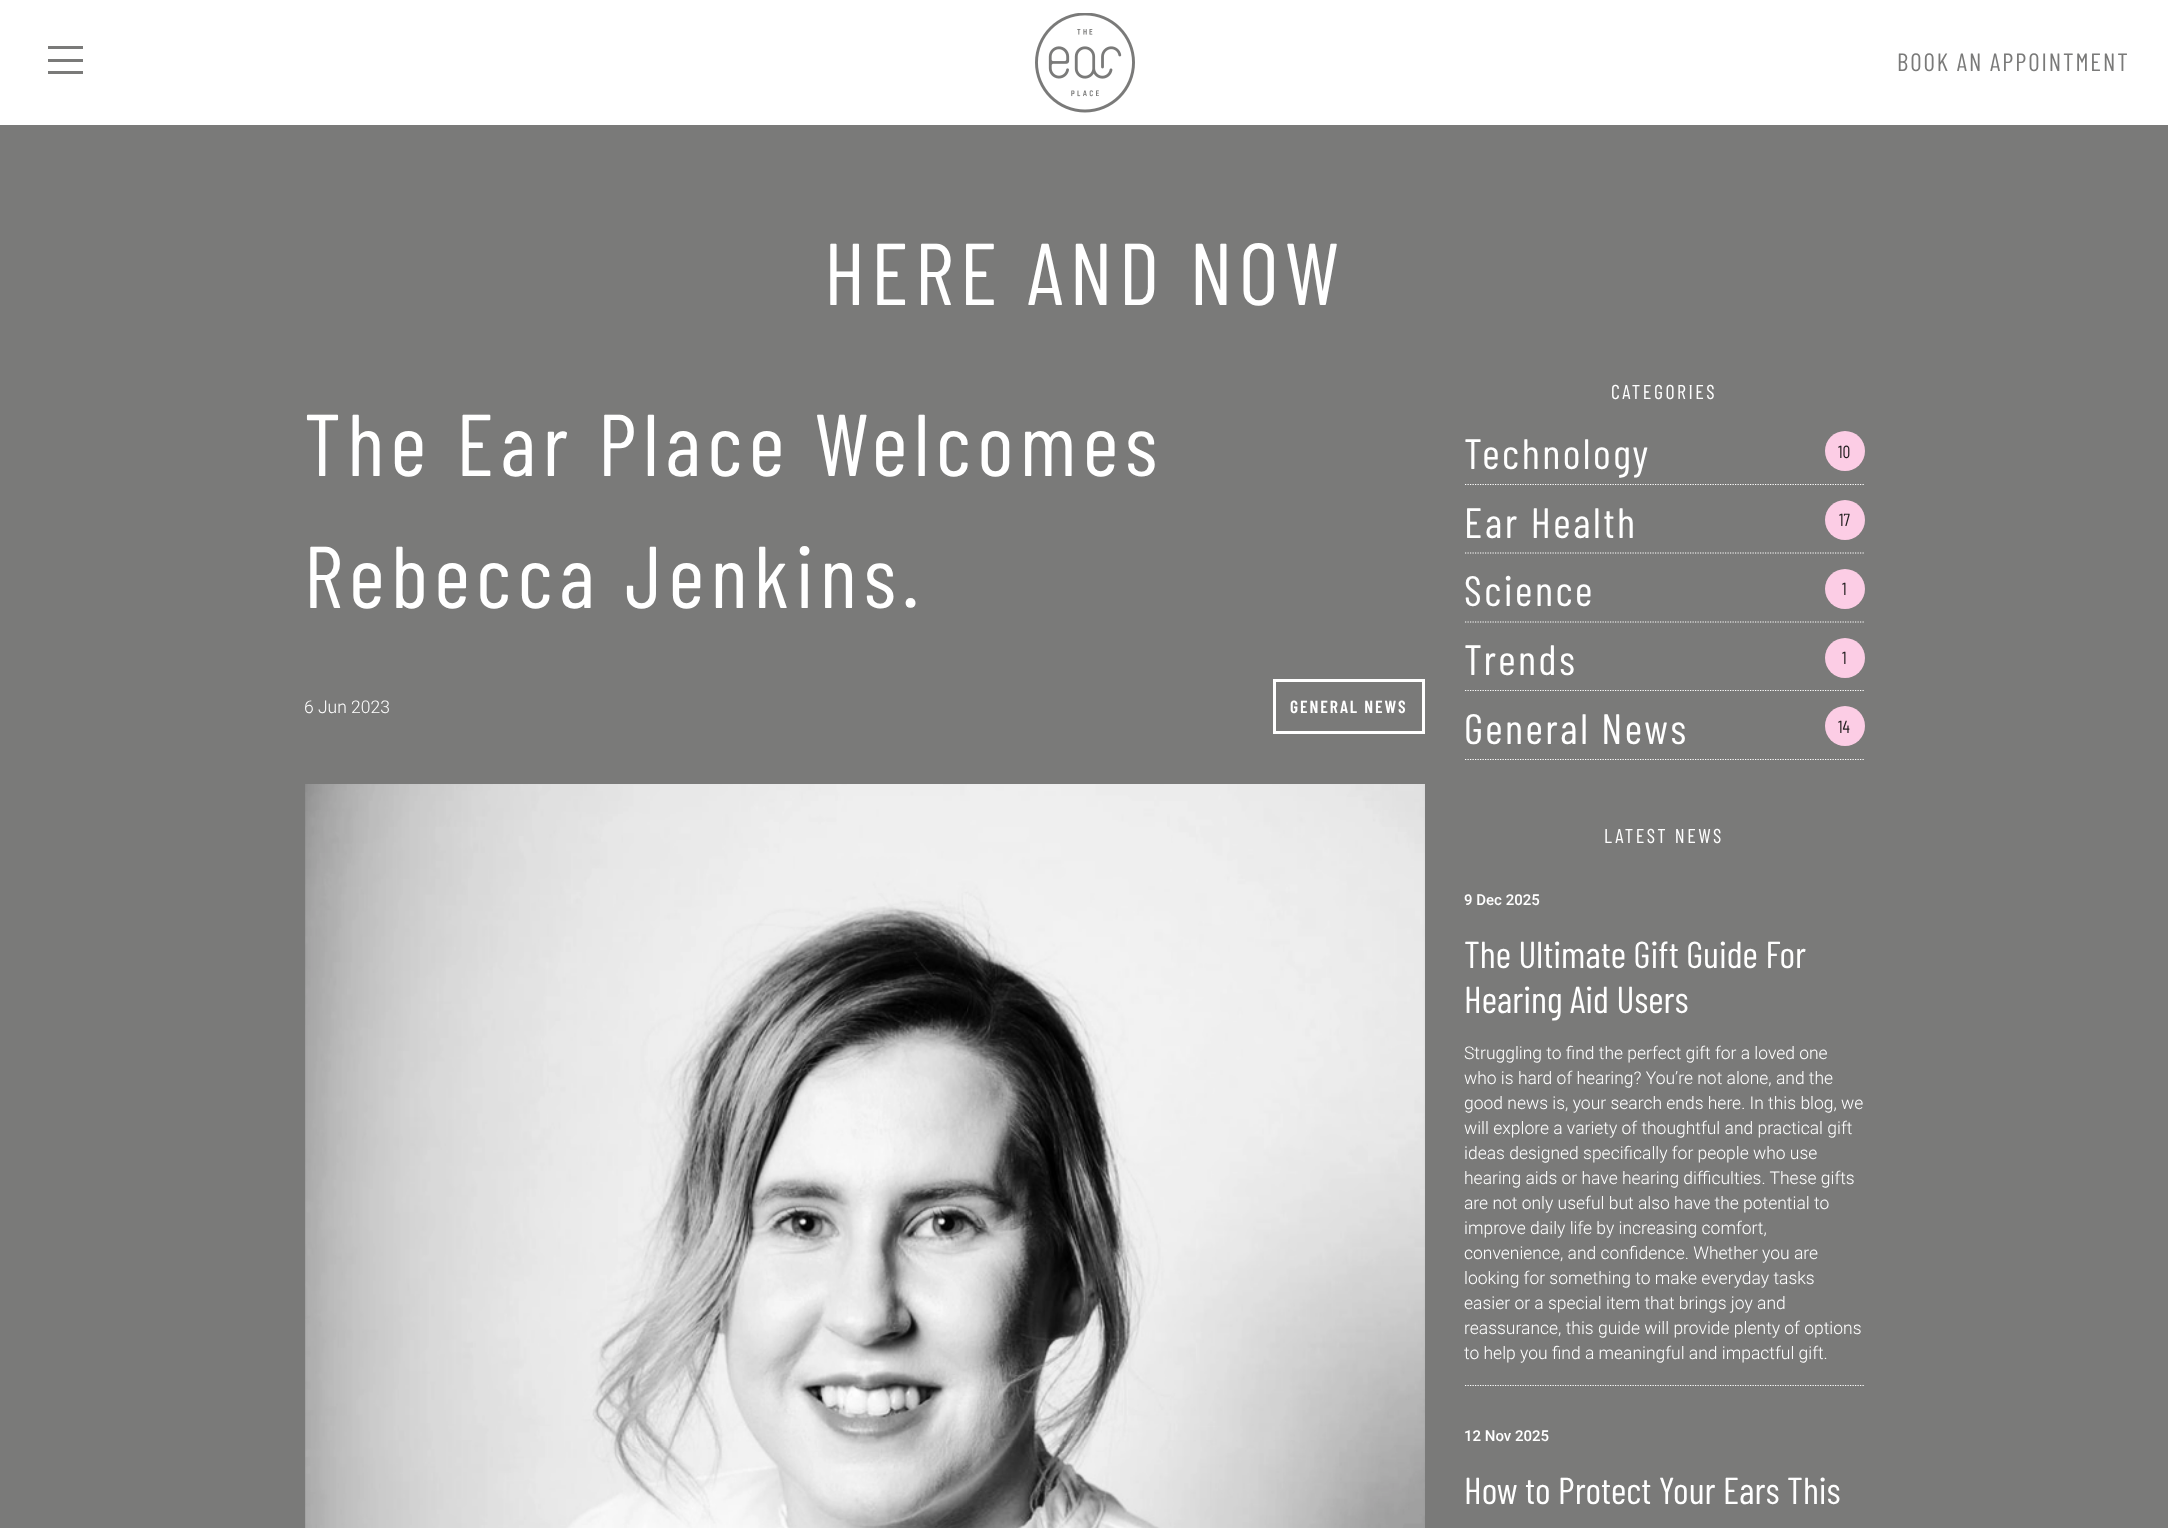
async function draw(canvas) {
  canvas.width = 2168;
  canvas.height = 1528;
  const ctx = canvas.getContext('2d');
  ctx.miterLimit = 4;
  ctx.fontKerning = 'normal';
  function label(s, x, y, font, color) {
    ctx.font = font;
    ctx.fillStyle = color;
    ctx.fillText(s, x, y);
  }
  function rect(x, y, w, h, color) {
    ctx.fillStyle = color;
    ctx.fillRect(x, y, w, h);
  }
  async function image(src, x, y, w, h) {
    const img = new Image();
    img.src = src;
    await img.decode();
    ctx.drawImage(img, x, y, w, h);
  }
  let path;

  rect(0, 0, 2168, 1528, '#fff');
  rect(48, 46, 35, 3, '#7a7a79');
  rect(48, 59, 35, 3, '#7a7a79');
  rect(48, 71, 35, 3, '#7a7a79');
  await image('assets/img1.png', 1035, 13, 100, 100);
  ctx.letterSpacing = '1.9px';
  label('BOOK AN APPOINTMENT', 1897, 71, '25px Barlow Condensed', '#7a7a79');
  rect(0, 125, 2168, 1403, '#7a7a79');
  ctx.letterSpacing = '6.25px';
  label('HERE AND NOW', 824, 305, '87.5px Barlow Condensed', '#fff');
  label('The Ear Place Welcomes', 304, 476, '87.5px Barlow Condensed', '#fff');
  label('Rebecca Jenkins.', 304, 608, '87.5px Barlow Condensed', '#fff');
  ctx.letterSpacing = '0px';
  label('6 Jun 2023', 304, 713, '300 17.5px Roboto', '#fff');
  ctx.strokeStyle = '#fff';
  ctx.lineWidth = 3;
  ctx.strokeRect(1274.5, 680.5, 149, 52);
  ctx.letterSpacing = '1.9px';
  label('GENERAL NEWS', 1290, 713, '600 17.5px Barlow Condensed', '#fff');
  await image('assets/img2.png', 305, 784, 1120, 744);
  ctx.letterSpacing = '2.5px';
  label('CATEGORIES', 1611, 399, '20px Barlow Condensed', '#fff');
  path = new Path2D('M1465 484.5H1865');
  ctx.lineWidth = 1.2;
  ctx.setLineDash([1.25, 1.25]);
  ctx.stroke(path);
  label('Technology', 1464, 469, '42.5px Barlow Condensed', '#fff');
  ctx.fillStyle = '#fccde5';
  ctx.beginPath();
  ctx.arc(1845, 451, 20, 0, 2 * Math.PI);
  ctx.fill();
  ctx.letterSpacing = '0px';
  label('10', 1838, 458, '17.5px Barlow Condensed', '#231f20');
  path = new Path2D('M1465 553H1865');
  ctx.stroke(path);
  ctx.letterSpacing = '2.5px';
  label('Ear Health', 1464, 538, '42.5px Barlow Condensed', '#fff');
  ctx.fillStyle = '#fccde5';
  ctx.beginPath();
  ctx.arc(1845, 520, 20, 0, 2 * Math.PI);
  ctx.fill();
  ctx.letterSpacing = '0px';
  label('17', 1839, 526, '17.5px Barlow Condensed', '#231f20');
  path = new Path2D('M1465 622H1865');
  ctx.stroke(path);
  ctx.letterSpacing = '2.5px';
  label('Science', 1464, 606, '42.5px Barlow Condensed', '#fff');
  ctx.fillStyle = '#fccde5';
  ctx.beginPath();
  ctx.arc(1845, 589, 20, 0, 2 * Math.PI);
  ctx.fill();
  ctx.letterSpacing = '0px';
  label('1', 1842, 595, '17.5px Barlow Condensed', '#231f20');
  path = new Path2D('M1465 690.5H1865');
  ctx.stroke(path);
  ctx.letterSpacing = '2.5px';
  label('Trends', 1464, 675, '42.5px Barlow Condensed', '#fff');
  ctx.fillStyle = '#fccde5';
  ctx.beginPath();
  ctx.arc(1845, 658, 20, 0, 2 * Math.PI);
  ctx.fill();
  ctx.letterSpacing = '0px';
  label('1', 1842, 664, '17.5px Barlow Condensed', '#231f20');
  path = new Path2D('M1465 759.5H1865');
  ctx.stroke(path);
  ctx.letterSpacing = '2.5px';
  label('General News', 1464, 744, '42.5px Barlow Condensed', '#fff');
  ctx.fillStyle = '#fccde5';
  ctx.beginPath();
  ctx.arc(1845, 726, 20, 0, 2 * Math.PI);
  ctx.fill();
  ctx.letterSpacing = '0px';
  label('14', 1838, 733, '17.5px Barlow Condensed', '#231f20');
  ctx.letterSpacing = '2.5px';
  label('LATEST NEWS', 1604, 843, '20px Barlow Condensed', '#fff');
  path = new Path2D('M1465 1385.5H1865');
  ctx.stroke(path);
  ctx.letterSpacing = '0px';
  label('9 Dec 2025', 1464, 905, '500 15px Roboto', '#fff');
  label('The Ultimate Gift Guide For', 1464, 968, '37.5px Barlow Condensed', '#fff');
  label('Hearing Aid Users', 1464, 1013, '37.5px Barlow Condensed', '#fff');
  label('Struggling to find the perfect gift for a loved one', 1464, 1059, '300 17.5px Roboto', '#fff');
  label('who is hard of hearing? You’re not alone, and the', 1464, 1084, '300 17.5px Roboto', '#fff');
  label('good news is, your search ends here. In this blog, we', 1464, 1109, '300 17.5px Roboto', '#fff');
  label('will explore a variety of thoughtful and practical gift', 1464, 1134, '300 17.5px Roboto', '#fff');
  label('ideas designed specifically for people who use', 1464, 1159, '300 17.5px Roboto', '#fff');
  label('hearing aids or have hearing difficulties. These gifts', 1464, 1184, '300 17.5px Roboto', '#fff');
  label('are not only useful but also have the potential to', 1464, 1209, '300 17.5px Roboto', '#fff');
  label('improve daily life by increasing comfort,', 1464, 1234, '300 17.5px Roboto', '#fff');
  label('convenience, and confidence. Whether you are', 1464, 1259, '300 17.5px Roboto', '#fff');
  label('looking for something to make everyday tasks', 1464, 1284, '300 17.5px Roboto', '#fff');
  label('easier or a special item that brings joy and', 1464, 1309, '300 17.5px Roboto', '#fff');
  label('reassurance, this guide will provide plenty of options', 1464, 1334, '300 17.5px Roboto', '#fff');
  label('to help you find a meaningful and impactful gift.', 1464, 1359, '300 17.5px Roboto', '#fff');
  label('12 Nov 2025', 1464, 1441, '500 15px Roboto', '#fff');
  label('How to Protect Your Ears This', 1464, 1504, '37.5px Barlow Condensed', '#fff');
}

draw(document.querySelector('canvas'));
